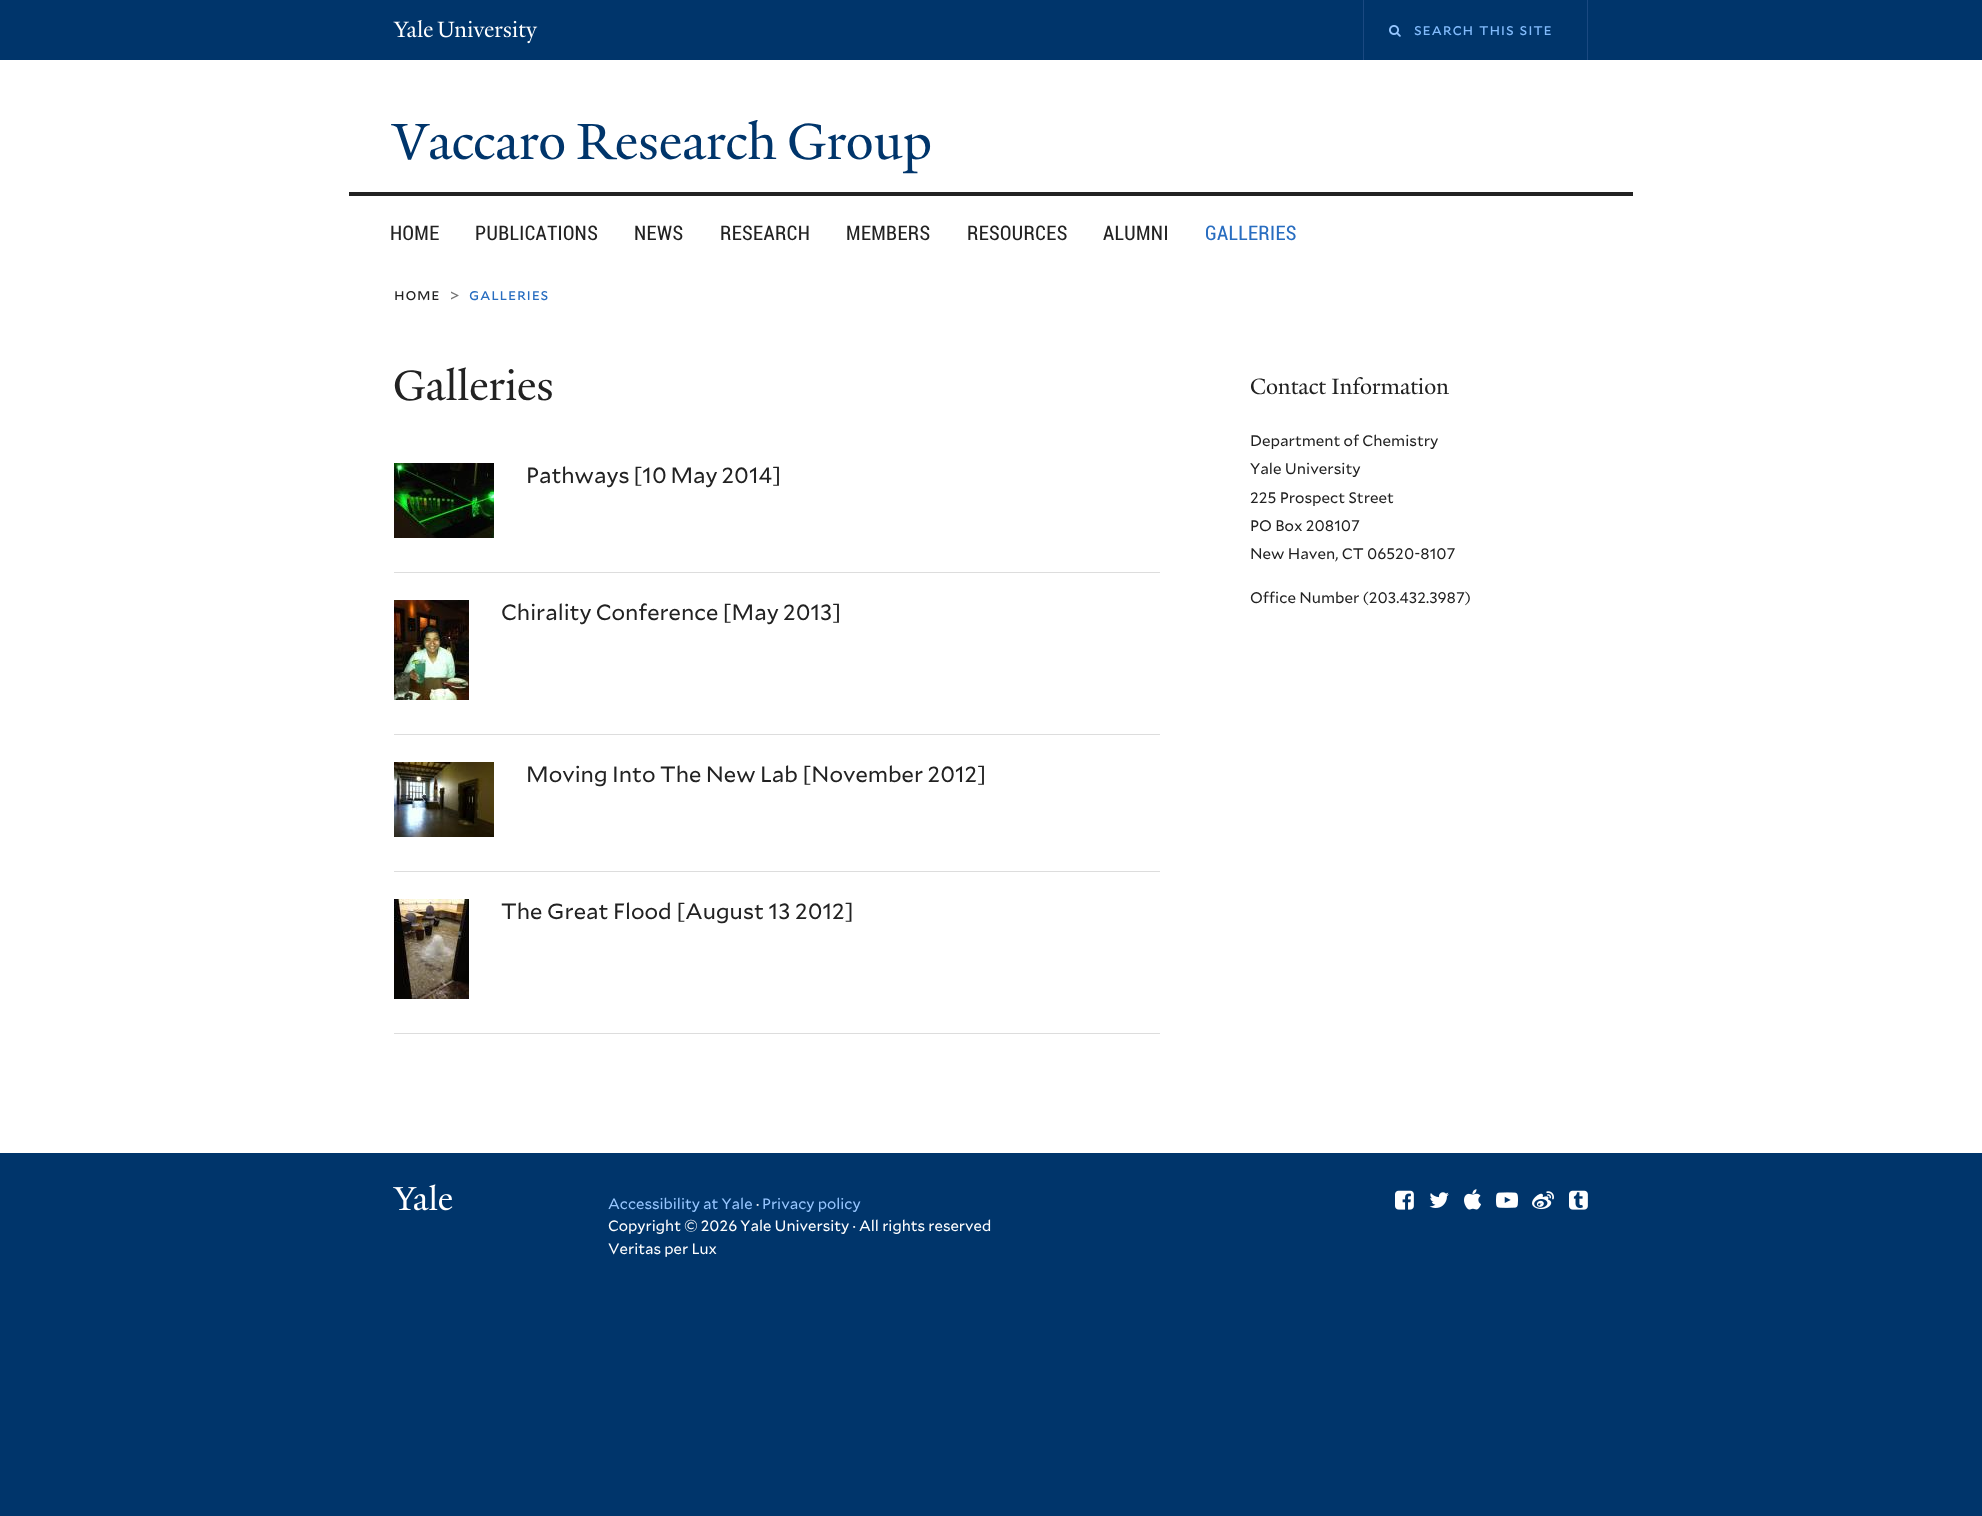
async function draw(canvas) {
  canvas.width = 1982;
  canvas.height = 1516;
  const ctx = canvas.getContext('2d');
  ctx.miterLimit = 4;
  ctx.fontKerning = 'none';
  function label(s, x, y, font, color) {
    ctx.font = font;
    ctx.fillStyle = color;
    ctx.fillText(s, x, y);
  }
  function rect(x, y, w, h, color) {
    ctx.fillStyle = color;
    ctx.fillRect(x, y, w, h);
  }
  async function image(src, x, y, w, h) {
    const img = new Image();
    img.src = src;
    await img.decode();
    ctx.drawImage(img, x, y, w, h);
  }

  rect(0, 0, 1982, 1516, '#00356b');
  rect(0, 60, 1982, 1093, '#fff');
  await image('assets/img1.png', 393, 20, 40, 18);
  await image('assets/img2.png', 437, 20, 101, 24);
  rect(1587, 0, 1, 60, '#1b4981');
  rect(1363, 0, 1, 60, '#1b4981');
  await image('assets/img3.png', 1389, 25, 12, 12);
  ctx.letterSpacing = '0.75px';
  ctx.wordSpacing = '1px';
  label('search this site', 1414, 35, '15.75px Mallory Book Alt', '#82bbfc');
  ctx.letterSpacing = '0px';
  ctx.wordSpacing = '-2px';
  label('Vaccaro Research Group', 393, 159, '55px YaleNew', '#00356b');
  rect(349, 192, 1284, 4, '#222');
  ctx.letterSpacing = '0.4px';
  ctx.wordSpacing = '0px';
  label('HOME', 390, 240, '20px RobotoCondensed', '#222');
  label('PUBLICATIONS', 475, 240, '20px RobotoCondensed', '#222');
  label('NEWS', 634, 240, '20px RobotoCondensed', '#222');
  label('RESEARCH', 720, 240, '20px RobotoCondensed', '#222');
  label('MEMBERS', 846, 240, '20px RobotoCondensed', '#222');
  label('RESOURCES', 967, 240, '20px RobotoCondensed', '#222');
  label('ALUMNI', 1103, 240, '20px RobotoCondensed', '#222');
  label('GALLERIES', 1205, 240, '20px RobotoCondensed', '#286dc0');
  ctx.letterSpacing = '0.75px';
  label('home', 394, 300, '15.75px Mallory Book Alt', '#222');
  label('>', 450, 301, '15.75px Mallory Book', '#767676');
  label('galleries', 469, 300, '15.75px Mallory Book Alt', '#286dc0');
  ctx.letterSpacing = '0px';
  label('Galleries', 393, 400, '46px YaleNew', '#222');
  rect(394, 572, 766, 1, '#ddd');
  await image('assets/img4.png', 394, 463, 100, 75);
  ctx.wordSpacing = '-1px';
  label('Pathways [10 May 2014]', 526, 483, '22px Mallory Book', '#222');
  rect(394, 734, 766, 1, '#ddd');
  await image('assets/img5.png', 394, 600, 75, 100);
  ctx.wordSpacing = '-0.5px';
  label('Chirality Conference [May 2013]', 501, 620, '22px Mallory Book', '#222');
  rect(394, 871, 766, 1, '#ddd');
  await image('assets/img6.png', 394, 762, 100, 75);
  ctx.wordSpacing = '-0.25px';
  label('Moving Into The New Lab [November 2012]', 526, 782, '22px Mallory Book', '#222');
  rect(394, 1033, 766, 1, '#ddd');
  await image('assets/img7.png', 394, 899, 75, 100);
  ctx.wordSpacing = '0px';
  label('The Great Flood [August 13 2012]', 501, 919, '22px Mallory Book', '#222');
  label('Contact Information', 1250, 394, '24px YaleNew', '#222');
  label('Department of Chemistry', 1250, 446, '15.25px Mallory Book', '#222');
  label('Yale University', 1250, 474, '15.25px Mallory Book', '#222');
  label('225 Prospect Street', 1250, 503, '15.25px Mallory Book', '#222');
  label('PO Box 208107', 1250, 531, '15.25px Mallory Book', '#222');
  label('New Haven, CT 06520-8107', 1250, 559, '15.25px Mallory Book', '#222');
  label('Office Number (203.432.3987)', 1250, 603, '15.25px Mallory Book', '#222');
  await image('assets/img8.png', 393, 1184, 60, 27);
  label('Accessibility at Yale', 608, 1209, '15px Mallory Book', '#96c6ff');
  label('·', 756, 1209, '15px Mallory Book', '#fff');
  label('Privacy policy', 762, 1209, '15px Mallory Book', '#96c6ff');
  label('Copyright © 2026 Yale University · All rights reserved', 608, 1231, '15px Mallory Book', '#fff');
  label('Veritas per Lux', 608, 1254, '15px Mallory Book', '#fff');
  await image('assets/img9.png', 1395, 1190, 19, 20);
  await image('assets/img10.png', 1429, 1192, 20, 16);
  await image('assets/img11.png', 1464, 1189, 17, 21);
  await image('assets/img12.png', 1496, 1192, 22, 16);
  await image('assets/img13.png', 1532, 1191, 22, 19);
  await image('assets/img14.png', 1569, 1190, 19, 20);
}

draw(document.querySelector('canvas'));
